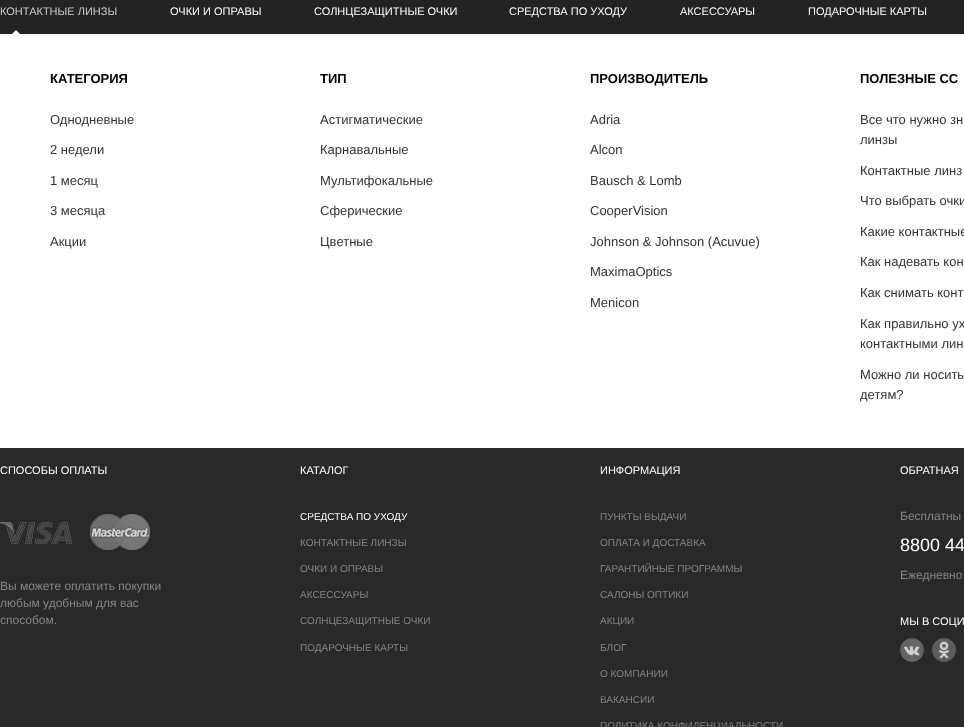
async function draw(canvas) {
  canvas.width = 964;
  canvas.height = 727;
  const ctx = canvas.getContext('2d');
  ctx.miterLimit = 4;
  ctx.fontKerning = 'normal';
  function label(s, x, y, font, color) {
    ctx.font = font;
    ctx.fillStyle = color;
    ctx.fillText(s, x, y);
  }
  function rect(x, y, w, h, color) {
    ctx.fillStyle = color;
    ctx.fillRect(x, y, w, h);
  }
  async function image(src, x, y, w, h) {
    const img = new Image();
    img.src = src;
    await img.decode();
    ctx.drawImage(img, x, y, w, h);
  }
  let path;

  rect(0, 0, 964, 727, '#232323');
  label('КОНТАКТНЫЕ ЛИНЗЫ', 0, 15, '11px Liberation Sans', '#cacaca');
  rect(0, 34, 964, 414, '#fff');
  path = new Path2D('M22 36H10L16 30Z');
  ctx.fill(path);
  label('КАТЕГОРИЯ', 50, 83, 'bold 13px Liberation Sans', '#000');
  label('Однодневные', 50, 124, '13px Liberation Sans', '#333');
  label('2 недели', 50, 154, '13px Liberation Sans', '#333');
  label('1 месяц', 50, 185, '13px Liberation Sans', '#333');
  label('3 месяца', 50, 215, '13px Liberation Sans', '#333');
  label('Акции', 50, 246, '13px Liberation Sans', '#333');
  label('ТИП', 320, 83, 'bold 13px Liberation Sans', '#000');
  label('Астигматические', 320, 124, '13px Liberation Sans', '#333');
  label('Карнавальные', 320, 154, '13px Liberation Sans', '#333');
  label('Мультифокальные', 320, 185, '13px Liberation Sans', '#333');
  label('Сферические', 320, 215, '13px Liberation Sans', '#333');
  label('Цветные', 320, 246, '13px Liberation Sans', '#333');
  label('ПРОИЗВОДИТЕЛЬ', 590, 83, 'bold 13px Liberation Sans', '#000');
  label('Adria', 590, 124, '13px Liberation Sans', '#333');
  label('Alcon', 590, 154, '13px Liberation Sans', '#333');
  label('Bausch & Lomb', 590, 185, '13px Liberation Sans', '#333');
  label('CooperVision', 590, 215, '13px Liberation Sans', '#333');
  label('Johnson & Johnson (Acuvue)', 590, 246, '13px Liberation Sans', '#333');
  label('MaximaOptics', 590, 276, '13px Liberation Sans', '#333');
  label('Menicon', 590, 307, '13px Liberation Sans', '#333');
  label('ПОЛЕЗНЫЕ СС', 860, 83, 'bold 13px Liberation Sans', '#000');
  label('Все что нужно зн', 860, 124, '13px Liberation Sans', '#333');
  label('линзы', 860, 144, '13px Liberation Sans', '#333');
  label('Контактные линз', 860, 175, '13px Liberation Sans', '#333');
  label('Что выбрать очки', 860, 205, '13px Liberation Sans', '#333');
  label('Какие контактные', 860, 236, '13px Liberation Sans', '#333');
  label('Как надевать кон', 860, 266, '13px Liberation Sans', '#333');
  label('Как снимать конт', 860, 297, '13px Liberation Sans', '#333');
  label('Как правильно ух', 860, 328, '13px Liberation Sans', '#333');
  label('контактными лин', 860, 348, '13px Liberation Sans', '#333');
  label('Можно ли носить', 860, 379, '13px Liberation Sans', '#333');
  label('детям?', 860, 399, '13px Liberation Sans', '#333');
  label('ОЧКИ И ОПРАВЫ', 170, 15, '11px Liberation Sans', '#fff');
  label('СОЛНЦЕЗАЩИТНЫЕ ОЧКИ', 314, 15, '11px Liberation Sans', '#fff');
  label('СРЕДСТВА ПО УХОДУ', 509, 15, '11px Liberation Sans', '#fff');
  label('АКСЕССУАРЫ', 680, 15, '11px Liberation Sans', '#fff');
  label('ПОДАРОЧНЫЕ КАРТЫ', 808, 15, '11px Liberation Sans', '#fff');
  rect(0, 448, 964, 279, '#292929');
  label('СПОСОБЫ ОПЛАТЫ', 0, 474, '11px Liberation Sans', '#fff');
  await image('assets/img1.png', 0, 514, 150, 36);
  label('Вы можете оплатить покупки', 0, 590, '12px Liberation Sans', '#848484');
  label('любым удобным для вас', 0, 607, '12px Liberation Sans', '#848484');
  label('способом.', 0, 624, '12px Liberation Sans', '#848484');
  label('КАТАЛОГ', 300, 474, '11px Liberation Sans', '#fff');
  label('СРЕДСТВА ПО УХОДУ', 300, 520, '10px Liberation Sans', '#fff');
  label('КОНТАКТНЫЕ ЛИНЗЫ', 300, 546, '10px Liberation Sans', '#848484');
  label('ОЧКИ И ОПРАВЫ', 300, 572, '10px Liberation Sans', '#848484');
  label('АКСЕССУАРЫ', 300, 598, '10px Liberation Sans', '#848484');
  label('СОЛНЦЕЗАЩИТНЫЕ ОЧКИ', 300, 624, '10px Liberation Sans', '#848484');
  label('ПОДАРОЧНЫЕ КАРТЫ', 300, 651, '10px Liberation Sans', '#848484');
  label('ИНФОРМАЦИЯ', 600, 474, '11px Liberation Sans', '#fff');
  label('ПУНКТЫ ВЫДАЧИ', 600, 520, '10px Liberation Sans', '#848484');
  label('ОПЛАТА И ДОСТАВКА', 600, 546, '10px Liberation Sans', '#848484');
  label('ГАРАНТИЙНЫЕ ПРОГРАММЫ', 600, 572, '10px Liberation Sans', '#848484');
  label('САЛОНЫ ОПТИКИ', 600, 598, '10px Liberation Sans', '#848484');
  label('АКЦИИ', 600, 624, '10px Liberation Sans', '#848484');
  label('БЛОГ', 600, 651, '10px Liberation Sans', '#848484');
  label('О КОМПАНИИ', 600, 677, '10px Liberation Sans', '#848484');
  label('ВАКАНСИИ', 600, 703, '10px Liberation Sans', '#848484');
  label('ПОЛИТИКА КОНФИДЕНЦИАЛЬНОСТИ', 600, 729, '10px Liberation Sans', '#848484');
  label('ОБРАТНАЯ', 900, 474, '11px Liberation Sans', '#fff');
  label('Бесплатны', 900, 520, '12px Liberation Sans', '#848484');
  label('8800 44', 900, 551, '18px Liberation Sans', '#fff');
  label('Ежедневно', 900, 579, '12px Liberation Sans', '#848484');
  label('МЫ В СОЦИ', 900, 625, '11px Liberation Sans', '#fff');
  await image('assets/img2.png', 900, 638, 24, 24);
  await image('assets/img3.png', 932, 638, 24, 24);
}

draw(document.querySelector('canvas'));
